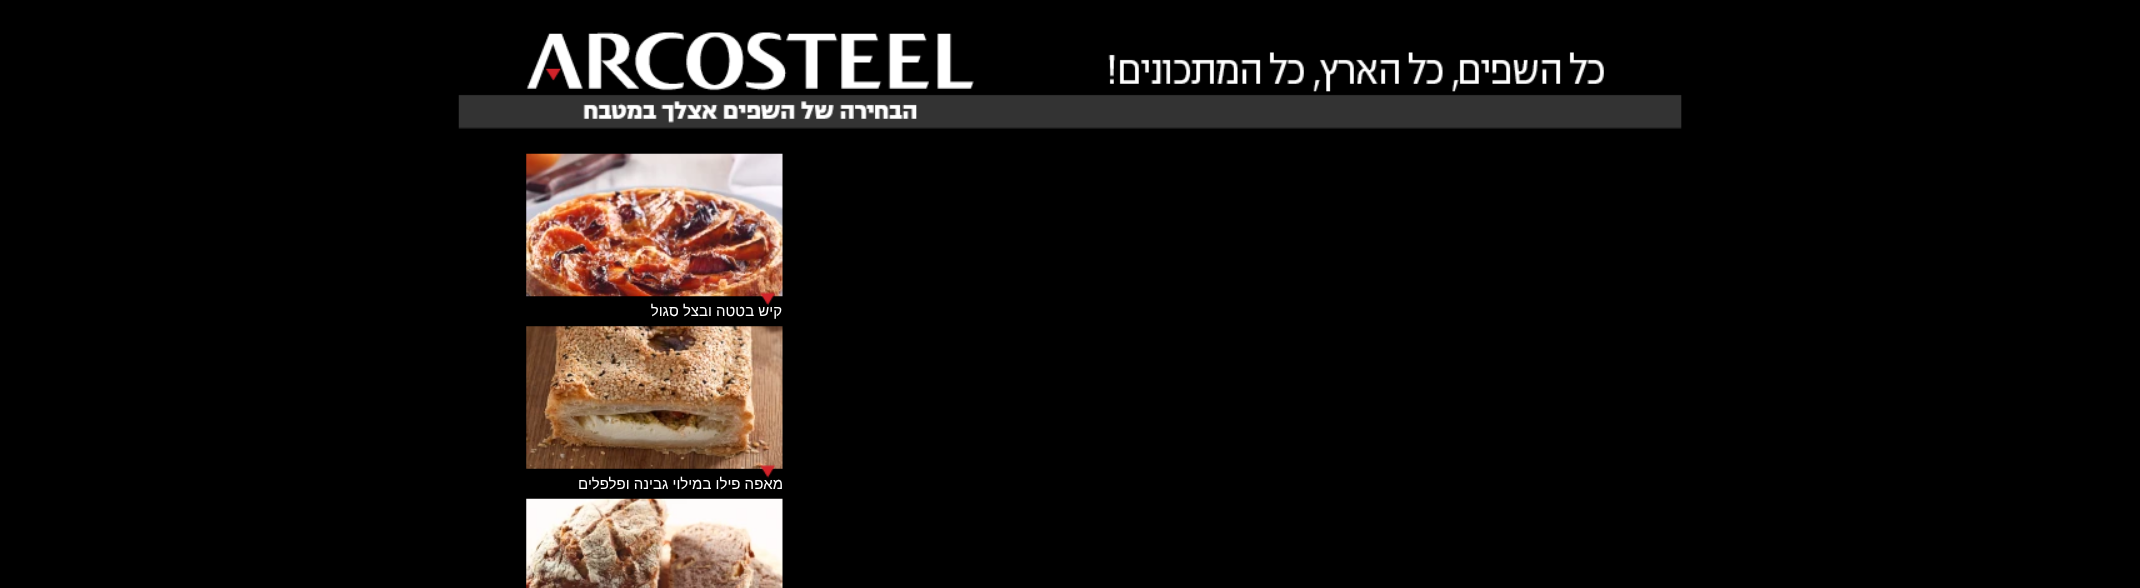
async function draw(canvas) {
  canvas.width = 2140;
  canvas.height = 588;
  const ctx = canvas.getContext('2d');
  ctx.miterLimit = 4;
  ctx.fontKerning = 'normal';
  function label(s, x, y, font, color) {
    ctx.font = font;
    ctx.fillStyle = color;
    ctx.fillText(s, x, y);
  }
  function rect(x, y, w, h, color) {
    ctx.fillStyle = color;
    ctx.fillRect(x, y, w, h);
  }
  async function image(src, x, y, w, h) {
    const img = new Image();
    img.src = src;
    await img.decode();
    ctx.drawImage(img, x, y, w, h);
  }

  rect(0, 0, 2140, 588, '#000');
  await image('assets/img1.png', 458, 32, 1224, 97);
  await image('assets/img2.png', 526, 153, 257, 144);
  ctx.direction = 'rtl';
  label('קיש בטטה ובצל סגול', 782, 316, '15px Liberation Sans', '#fff');
  await image('assets/img3.png', 760, 292, 16, 14);
  await image('assets/img4.png', 526, 326, 257, 143);
  label('מאפה פילו במילוי גבינה ופלפלים', 783, 489, '15px Liberation Sans', '#fff');
  await image('assets/img5.png', 760, 464, 16, 14);
  await image('assets/img6.png', 526, 498, 257, 90);
}

draw(document.querySelector('canvas'));
